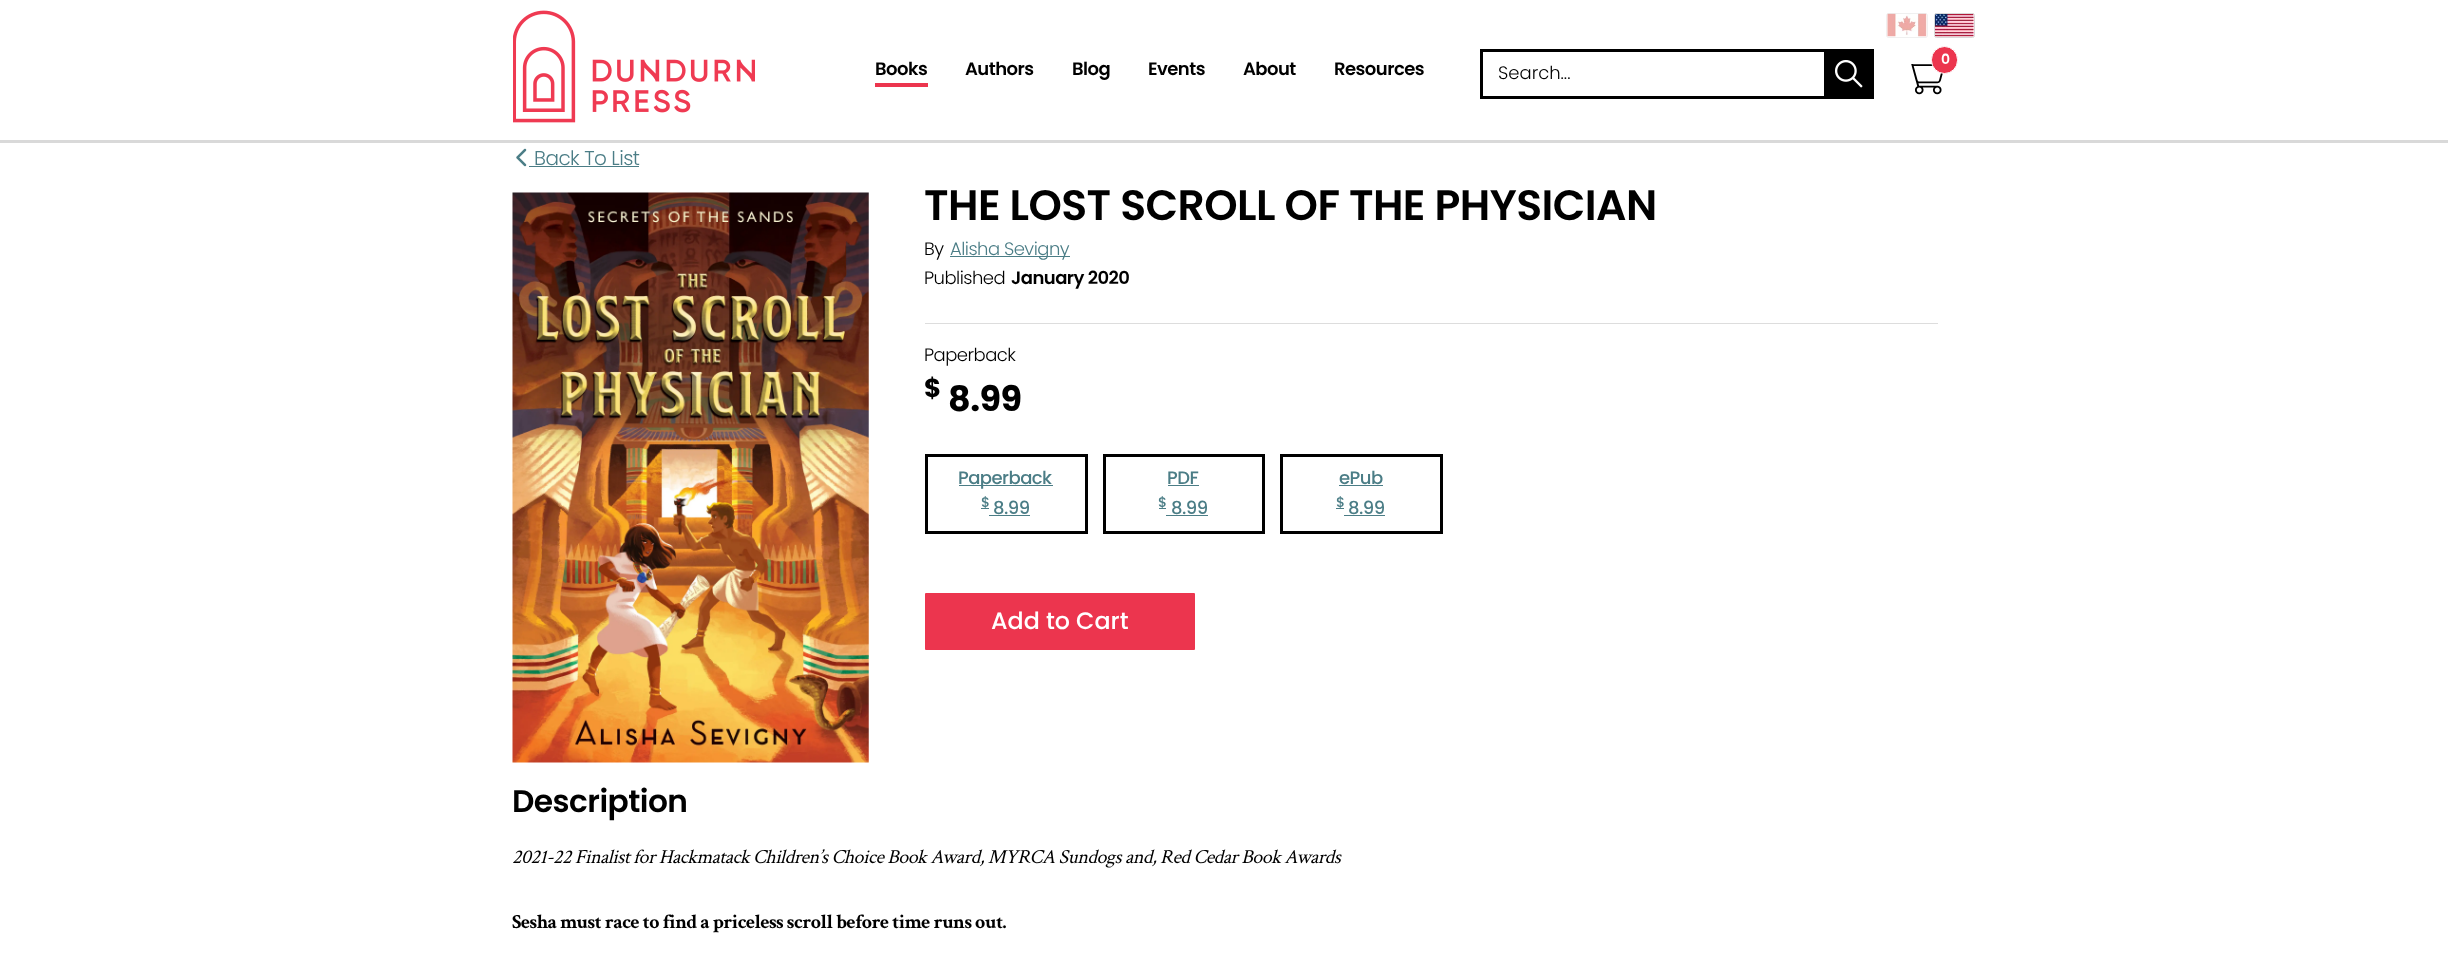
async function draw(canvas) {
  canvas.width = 2448;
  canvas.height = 954;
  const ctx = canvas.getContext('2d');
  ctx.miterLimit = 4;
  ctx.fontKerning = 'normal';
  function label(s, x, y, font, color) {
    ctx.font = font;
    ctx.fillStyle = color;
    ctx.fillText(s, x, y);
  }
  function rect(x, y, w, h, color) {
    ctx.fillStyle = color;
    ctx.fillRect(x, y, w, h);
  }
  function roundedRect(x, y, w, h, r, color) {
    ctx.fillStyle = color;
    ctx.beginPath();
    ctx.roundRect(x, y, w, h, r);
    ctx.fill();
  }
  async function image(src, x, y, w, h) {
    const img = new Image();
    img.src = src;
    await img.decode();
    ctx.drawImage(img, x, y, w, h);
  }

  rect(0, 0, 2448, 954, '#fff');
  rect(0, 140, 2448, 3, '#d9d9d9');
  await image('assets/img1.png', 513, 10, 242, 113);
  await image('assets/img2.png', 1887, 13, 40, 24);
  ctx.beginPath();
  ctx.roundRect(1886.5, 13.5, 41, 24, 2);
  ctx.strokeStyle = '#d9d9d966';
  ctx.stroke();
  await image('assets/img3.png', 1935, 13, 39, 24);
  ctx.beginPath();
  ctx.roundRect(1934.5, 13.5, 40, 24, 2);
  ctx.strokeStyle = '#d9d9d9';
  ctx.stroke();
  await image('assets/img4.png', 1911, 64, 32, 31);
  ctx.fillStyle = '#ec354e';
  ctx.beginPath();
  ctx.roundRect(1931.5, 46.5, 26, 27, 13);
  ctx.fill();
  ctx.strokeStyle = '#fff';
  ctx.stroke();
  ctx.letterSpacing = '-0.53px';
  label('0', 1941, 64, '600 14px Poppins', '#fff');
  label('Books', 875, 75, '600 18px Poppins', '#000');
  rect(875, 83, 53, 4, '#ec354e');
  label('Authors', 965, 75, '600 18px Poppins', '#000');
  label('Blog', 1072, 75, '600 18px Poppins', '#000');
  label('Events', 1148, 75, '600 18px Poppins', '#000');
  label('About', 1243, 75, '600 18px Poppins', '#000');
  label('Resources', 1334, 75, '600 18px Poppins', '#000');
  ctx.beginPath();
  ctx.rect(1481.5, 50.5, 360, 47);
  ctx.strokeStyle = '#000';
  ctx.lineWidth = 3;
  ctx.stroke();
  ctx.letterSpacing = '0px';
  label('Search...', 1498, 79, '300 18px Poppins', '#000');
  rect(1824, 49, 50, 50, '#000');
  await image('assets/img5.png', 1835, 60, 28, 28);
  await image('assets/img6.png', 516, 148, 11, 19);
  ctx.letterSpacing = '-0.53px';
  label('Back To List', 534, 165, '300 20px Poppins', '#4b7d86');
  rect(529, 166, 110, 1, '#4b7d86');
  await image('assets/img7.png', 512, 192, 357, 571);
  ctx.letterSpacing = '-0.55px';
  label('THE LOST SCROLL OF THE PHYSICIAN', 924, 220, '600 42.5px Poppins', '#000');
  ctx.letterSpacing = '-0.53px';
  label('By', 924, 255, '300 18px Poppins', '#000');
  rect(950, 256, 120, 1, '#4b7d86');
  label('Alisha Sevigny', 950, 255, '300 18px Poppins', '#4b7d86');
  label('Published', 924, 284, '300 18px Poppins', '#000');
  label('January 2020', 1011, 284, '600 18px Poppins', '#000');
  rect(925, 323, 1013, 1, '#ddd');
  label('Paperback', 924, 361, '300 18px Poppins', '#000');
  label('$', 924, 397, 'bold 26px Poppins', '#000');
  label('8.99', 948, 411, 'bold 35px Poppins', '#000');
  ctx.beginPath();
  ctx.rect(926.5, 455.5, 160, 77);
  ctx.stroke();
  rect(959, 485, 94, 1, '#4b7d86');
  label('Paperback', 958, 484, '500 18px Poppins', '#4b7d86');
  rect(981, 508, 8, 1, '#4b7d86');
  label('$', 981, 507, '500 14px Poppins', '#4b7d86');
  label('8.99', 993, 514, '500 18px Poppins', '#4b7d86');
  rect(989, 515, 41, 1, '#4b7d86');
  ctx.beginPath();
  ctx.rect(1104.5, 455.5, 159, 77);
  ctx.stroke();
  label('PDF', 1167, 484, '500 18px Poppins', '#4b7d86');
  rect(1168, 485, 31, 1, '#4b7d86');
  rect(1159, 508, 7, 1, '#4b7d86');
  label('$', 1158, 507, '500 14px Poppins', '#4b7d86');
  label('8.99', 1171, 514, '500 18px Poppins', '#4b7d86');
  rect(1166, 515, 42, 1, '#4b7d86');
  ctx.beginPath();
  ctx.rect(1281.5, 455.5, 160, 77);
  ctx.stroke();
  label('ePub', 1339, 484, '500 18px Poppins', '#4b7d86');
  rect(1339, 485, 44, 1, '#4b7d86');
  rect(1336, 508, 8, 1, '#4b7d86');
  label('$', 1336, 507, '500 14px Poppins', '#4b7d86');
  label('8.99', 1348, 514, '500 18px Poppins', '#4b7d86');
  rect(1344, 515, 41, 1, '#4b7d86');
  roundedRect(925, 593, 270, 57, 1, '#ec354e');
  ctx.letterSpacing = '0px';
  label('Add to Cart', 991, 629, '500 23.75px Poppins', '#fff');
  ctx.letterSpacing = '-0.55px';
  label('Description', 512, 812, '600 31.25px Poppins', '#000');
  ctx.letterSpacing = '-0.53px';
  label('2021-22 Finalist for Hackmatack Children’s Choice Book Award, MYRCA Sundogs and, Red Cedar Book Awards', 512, 863, 'italic 20px Crimson Text', '#000');
  label('Sesha must race to find a priceless scroll before time runs out.', 512, 928, 'bold 20px Crimson Text', '#000');
}

draw(document.querySelector('canvas'));
